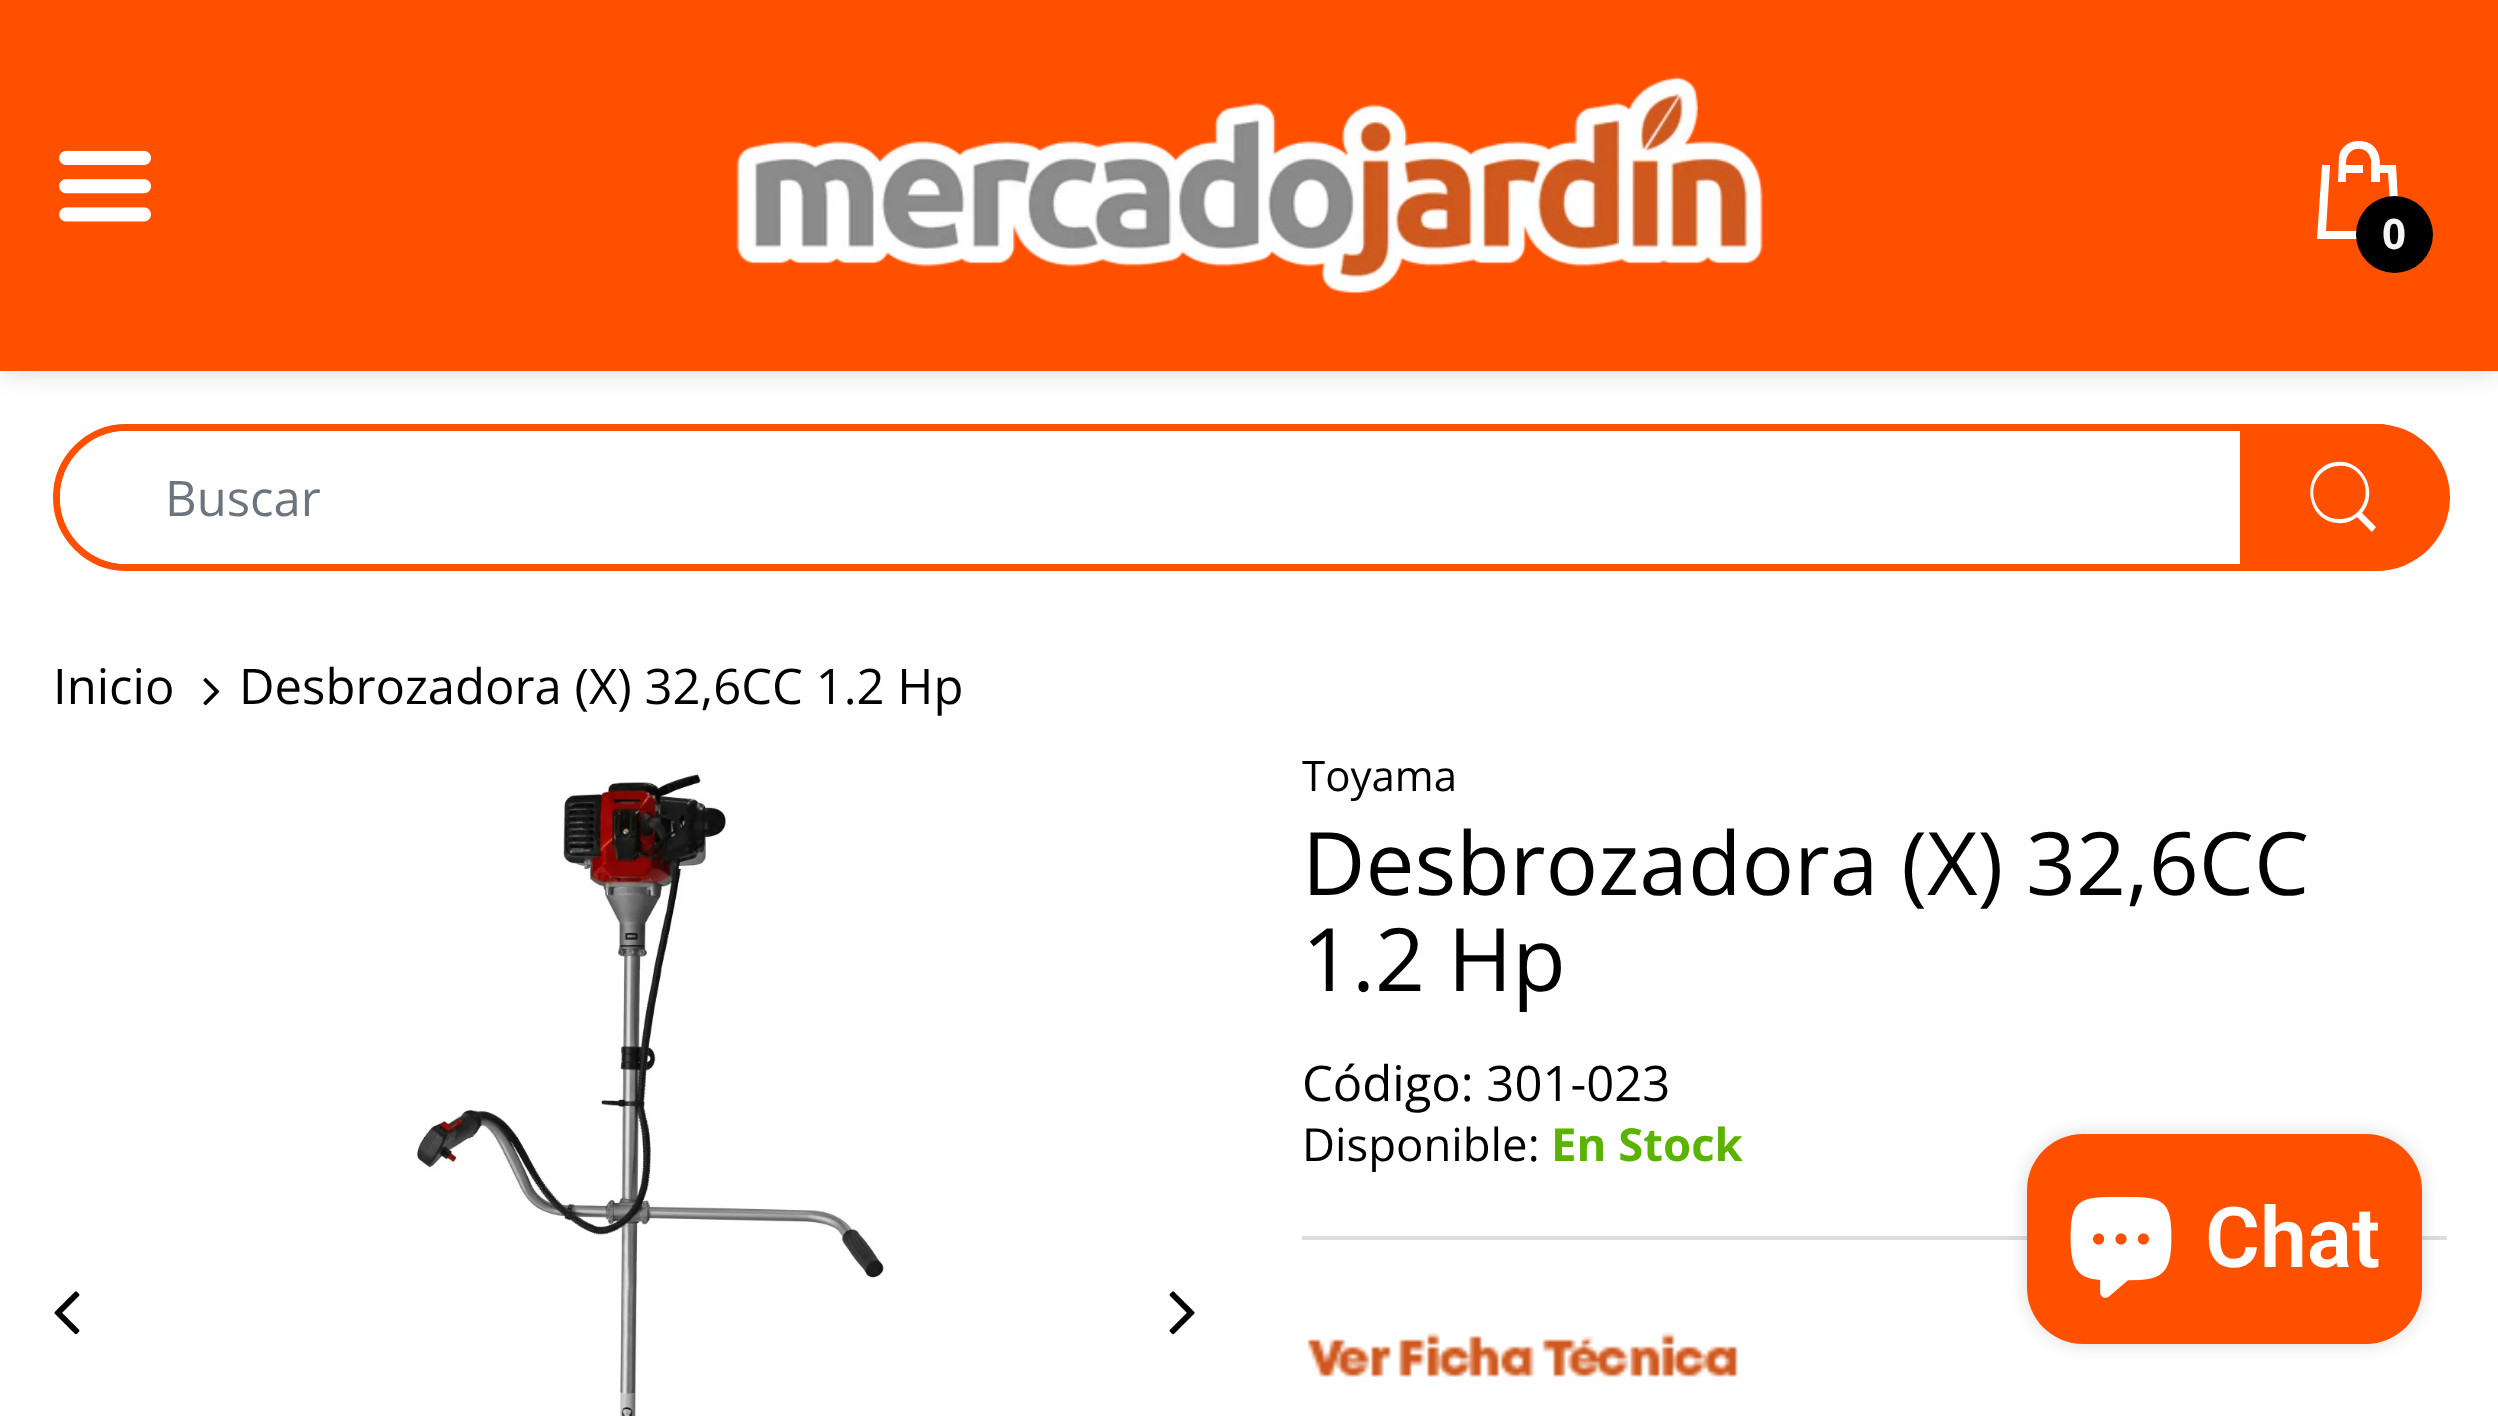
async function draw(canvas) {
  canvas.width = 2498;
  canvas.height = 1416;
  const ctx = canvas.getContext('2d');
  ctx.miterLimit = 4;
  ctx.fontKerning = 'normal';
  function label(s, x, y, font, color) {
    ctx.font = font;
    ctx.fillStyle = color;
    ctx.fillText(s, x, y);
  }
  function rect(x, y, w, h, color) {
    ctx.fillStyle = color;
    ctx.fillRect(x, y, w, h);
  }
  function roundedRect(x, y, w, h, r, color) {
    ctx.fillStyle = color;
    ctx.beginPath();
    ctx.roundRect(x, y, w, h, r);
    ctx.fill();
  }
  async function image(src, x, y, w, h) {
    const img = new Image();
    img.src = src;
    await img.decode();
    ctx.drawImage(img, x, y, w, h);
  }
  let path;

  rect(0, 0, 2498, 1416, '#fff');
  ctx.fillStyle = '#c9c9c9bf';
  ctx.filter = 'blur(14px)';
  ctx.beginPath();
  ctx.rect(0, 0, 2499, 371);
  ctx.fill();
  ctx.filter = 'none';
  rect(0, 0, 2498, 371, '#ff5000');
  await image('assets/img1.png', 59, 150, 92, 72);
  await image('assets/img2.png', 736, 76, 1027, 218);
  ctx.fillStyle = '#fff';
  path = new Path2D('M2358 141C2374 141 2380 151 2380 165H2396L2400 239H2317L2322 165H2330L2326 231H2392L2388 173H2380V182H2371V168C2371 164 2372 160 2370 157C2367 147 2353 146 2348 155C2346 158 2346 162 2346 165H2363V173H2346V182H2338L2339 157C2340 148 2348 141 2358 141Z');
  ctx.fill(path);
  ctx.fillStyle = '#000';
  ctx.beginPath();
  ctx.arc(2394.5, 234.5, 38.5, 0, 2 * Math.PI);
  ctx.fill();
  label('0', 2382, 249, 'bold 42px Open Sans', '#f5f5f5');
  ctx.beginPath();
  ctx.roundRect(56.5, 427.5, 2387, 140, 70);
  ctx.strokeStyle = '#ff5000';
  ctx.lineWidth = 7;
  ctx.stroke();
  roundedRect(60, 431, 2380, 133, 66.5, '#fff');
  label('Buscar', 165, 516, '49px Open Sans', '#6c757d');
  ctx.fillStyle = '#ff5000';
  ctx.beginPath();
  ctx.roundRect(2240, 424, 210, 147, [0, 73.5, 73.5, 0]);
  ctx.fill();
  ctx.fillStyle = '#fff';
  path = new Path2D('M2328 464C2358 452 2382 489 2362 513L2376 527L2372 532L2357 517C2352 521 2345 524 2338 523C2307 521 2300 477 2328 464ZM2338 466C2333 466 2328 468 2324 471C2303 487 2315 521 2341 519C2367 518 2375 483 2353 469C2349 467 2344 465 2338 466Z');
  ctx.fill(path);
  label('Inicio', 53, 704, '49px Open Sans', '#000');
  await image('assets/img3.png', 203, 678, 17, 28);
  label('Desbrozadora (X) 32,6CC 1.2 Hp', 239, 704, '49px Open Sans', '#000');
  await image('assets/img4.png', 416, 773, 470, 643);
  await image('assets/img5.png', 54, 1291, 26, 44);
  await image('assets/img6.png', 1169, 1291, 26, 44);
  label('Toyama', 1302, 791, '42px Open Sans', '#000');
  label('Desbrozadora (X) 32,6CC', 1302, 895, '87.5px Open Sans', '#000');
  label('1.2 Hp', 1302, 991, '87.5px Open Sans', '#000');
  label('Código: 301-023', 1302, 1101, '49px Open Sans', '#000');
  rect(1302, 1236, 1145, 4, '#ddd');
  label('Disponible:', 1302, 1161, '45.5px Open Sans', '#000');
  label('En Stock', 1551, 1161, 'bold 45.5px Open Sans', '#5bb300');
  await image('assets/img7.png', 1305, 1332, 433, 45);
  ctx.fillStyle = '#00000026';
  ctx.filter = 'blur(9px)';
  ctx.beginPath();
  ctx.roundRect(2027, 1134, 395, 210, 56);
  ctx.fill();
  ctx.filter = 'none';
  roundedRect(2027, 1134, 395, 210, 56, '#ff5000');
  await image('assets/img8.png', 2070, 1197, 102, 101);
  label('Chat', 2205, 1267, '600 84px Roboto', '#fff');
}

draw(document.querySelector('canvas'));
